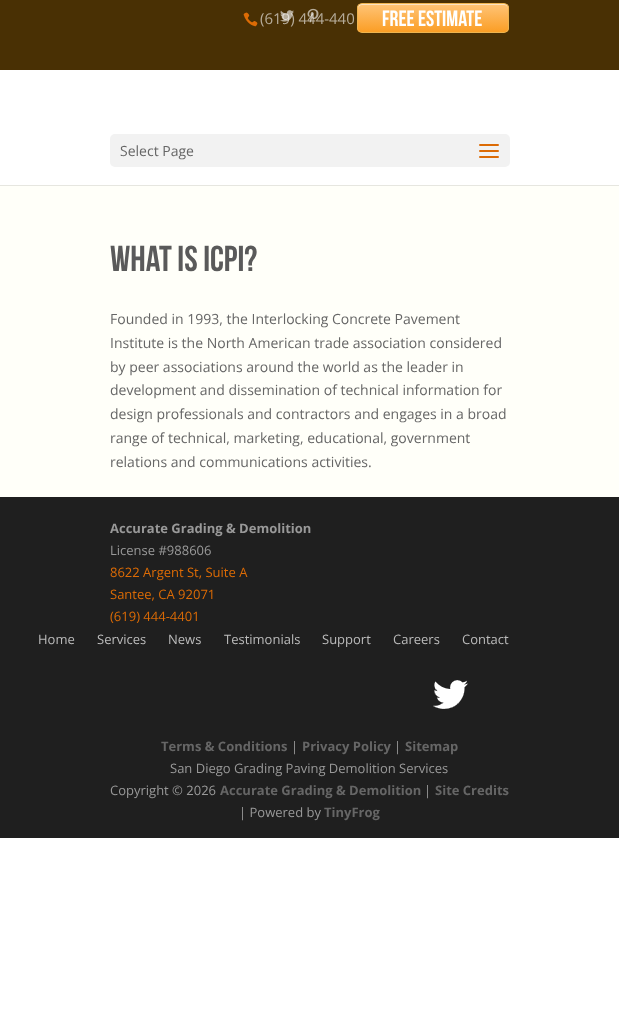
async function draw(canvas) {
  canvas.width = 619;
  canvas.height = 1021;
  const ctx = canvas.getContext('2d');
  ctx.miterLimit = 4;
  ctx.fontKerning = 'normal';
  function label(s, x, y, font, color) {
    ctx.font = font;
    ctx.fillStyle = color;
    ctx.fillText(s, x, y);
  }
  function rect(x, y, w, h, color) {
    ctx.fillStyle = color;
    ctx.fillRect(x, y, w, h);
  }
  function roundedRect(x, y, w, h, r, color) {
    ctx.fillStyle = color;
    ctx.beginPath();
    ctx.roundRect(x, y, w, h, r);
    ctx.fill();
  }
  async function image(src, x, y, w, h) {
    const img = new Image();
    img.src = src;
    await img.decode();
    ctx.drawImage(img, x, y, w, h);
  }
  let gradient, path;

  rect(0, 0, 619, 1021, '#fff');
  rect(0, 0, 619, 70, '#493004');
  label('(619) 444-440', 260, 24, '15px Open Sans', '#b6ac9b');
  await image('assets/img1.png', 280, 10, 14, 12);
  await image('assets/img2.png', 307, 8, 12, 15);
  await image('assets/img3.png', 243, 12, 15, 15);
  ctx.save();
  ctx.beginPath();
  ctx.roundRect(357, 3, 152, 30, 5);
  ctx.clip();
  gradient = ctx.createLinearGradient(433, 4, 433, 32);
  gradient.addColorStop(0, '#ffc477');
  gradient.addColorStop(1, '#fb9e25');
  ctx.fillStyle = gradient;
  ctx.fillRect(357, 4, 152, 28);
  ctx.restore();
  ctx.fillStyle = '#fce2c1';
  path = new Path2D('M362 5H504C506 5 508 7 508 9C508 7 507 5 505 4H362C359 4 358 6 358 9C358 7 360 5 362 5Z');
  ctx.fill(path);
  ctx.beginPath();
  ctx.roundRect(357.5, 3.5, 151, 29, 4.5);
  ctx.strokeStyle = '#eeb44f';
  ctx.stroke();
  label('Free Estimate', 382, 26, '22px Bebas Neue', '#fff');
  rect(0, 185, 619, 1, '#e6e6e0');
  roundedRect(110, 134, 400, 33, 5, '#f2f2f2');
  label('Select Page', 120, 156, '14px Open Sans', '#666');
  await image('assets/img4.png', 479, 144, 20, 14);
  rect(0, 186, 619, 311, '#fffff9');
  label('What is ICPI?', 110, 271, '36px Bebas Neue', '#5a5a5a');
  label('Founded in 1993, the Interlocking Concrete Pavement', 110, 324, '14px Open Sans', '#666');
  label('Institute is the North American trade association considered', 110, 348, '14px Open Sans', '#666');
  label('by peer associations around the world as the leader in', 110, 372, '14px Open Sans', '#666');
  label('development and dissemination of technical information for', 110, 395, '14px Open Sans', '#666');
  label('design professionals and contractors and engages in a broad', 110, 419, '14px Open Sans', '#666');
  label('range of technical, marketing, educational, government', 110, 443, '14px Open Sans', '#666');
  label('relations and communications activities.', 110, 467, '14px Open Sans', '#666');
  rect(0, 497, 619, 341, '#1f1f1f');
  label('Accurate Grading & Demolition', 110, 533, 'bold 13px Open Sans', '#999');
  label('License #988606', 110, 555, '13px Open Sans', '#999');
  label('8622 Argent St, Suite A', 110, 577, '13px Open Sans', '#dc6b05');
  label('Santee, CA 92071', 110, 599, '13px Open Sans', '#dc6b05');
  label('(619) 444-4401', 110, 621, '13px Open Sans', '#dc6b05');
  label('Home', 38, 644, '13px Open Sans', '#bbb');
  label('Services', 97, 644, '13px Open Sans', '#bbb');
  label('News', 168, 644, '13px Open Sans', '#bbb');
  label('Testimonials', 224, 644, '13px Open Sans', '#bbb');
  label('Support', 322, 644, '13px Open Sans', '#bbb');
  label('Careers', 393, 644, '13px Open Sans', '#bbb');
  label('Contact', 462, 644, '13px Open Sans', '#bbb');
  await image('assets/img5.png', 433, 680, 36, 29);
  label('Terms & Conditions', 161, 751, 'bold 13px Open Sans', '#666');
  label('|', 291, 751, '13px Open Sans', '#999');
  label('Privacy Policy', 302, 751, 'bold 13px Open Sans', '#666');
  label('|', 394, 751, '13px Open Sans', '#999');
  label('Sitemap', 405, 751, 'bold 13px Open Sans', '#666');
  label('San Diego Grading Paving Demolition Services', 170, 773, '13px Open Sans', '#999');
  label('Copyright © 2026', 110, 795, '13px Open Sans', '#999');
  label('Accurate Grading & Demolition', 220, 795, 'bold 13px Open Sans', '#666');
  label('|', 424, 795, '13px Open Sans', '#999');
  label('Site Credits', 435, 795, 'bold 13px Open Sans', '#666');
  label('| Powered by', 239, 817, '13px Open Sans', '#999');
  label('TinyFrog', 324, 817, 'bold 13px Open Sans', '#666');
}

draw(document.querySelector('canvas'));
